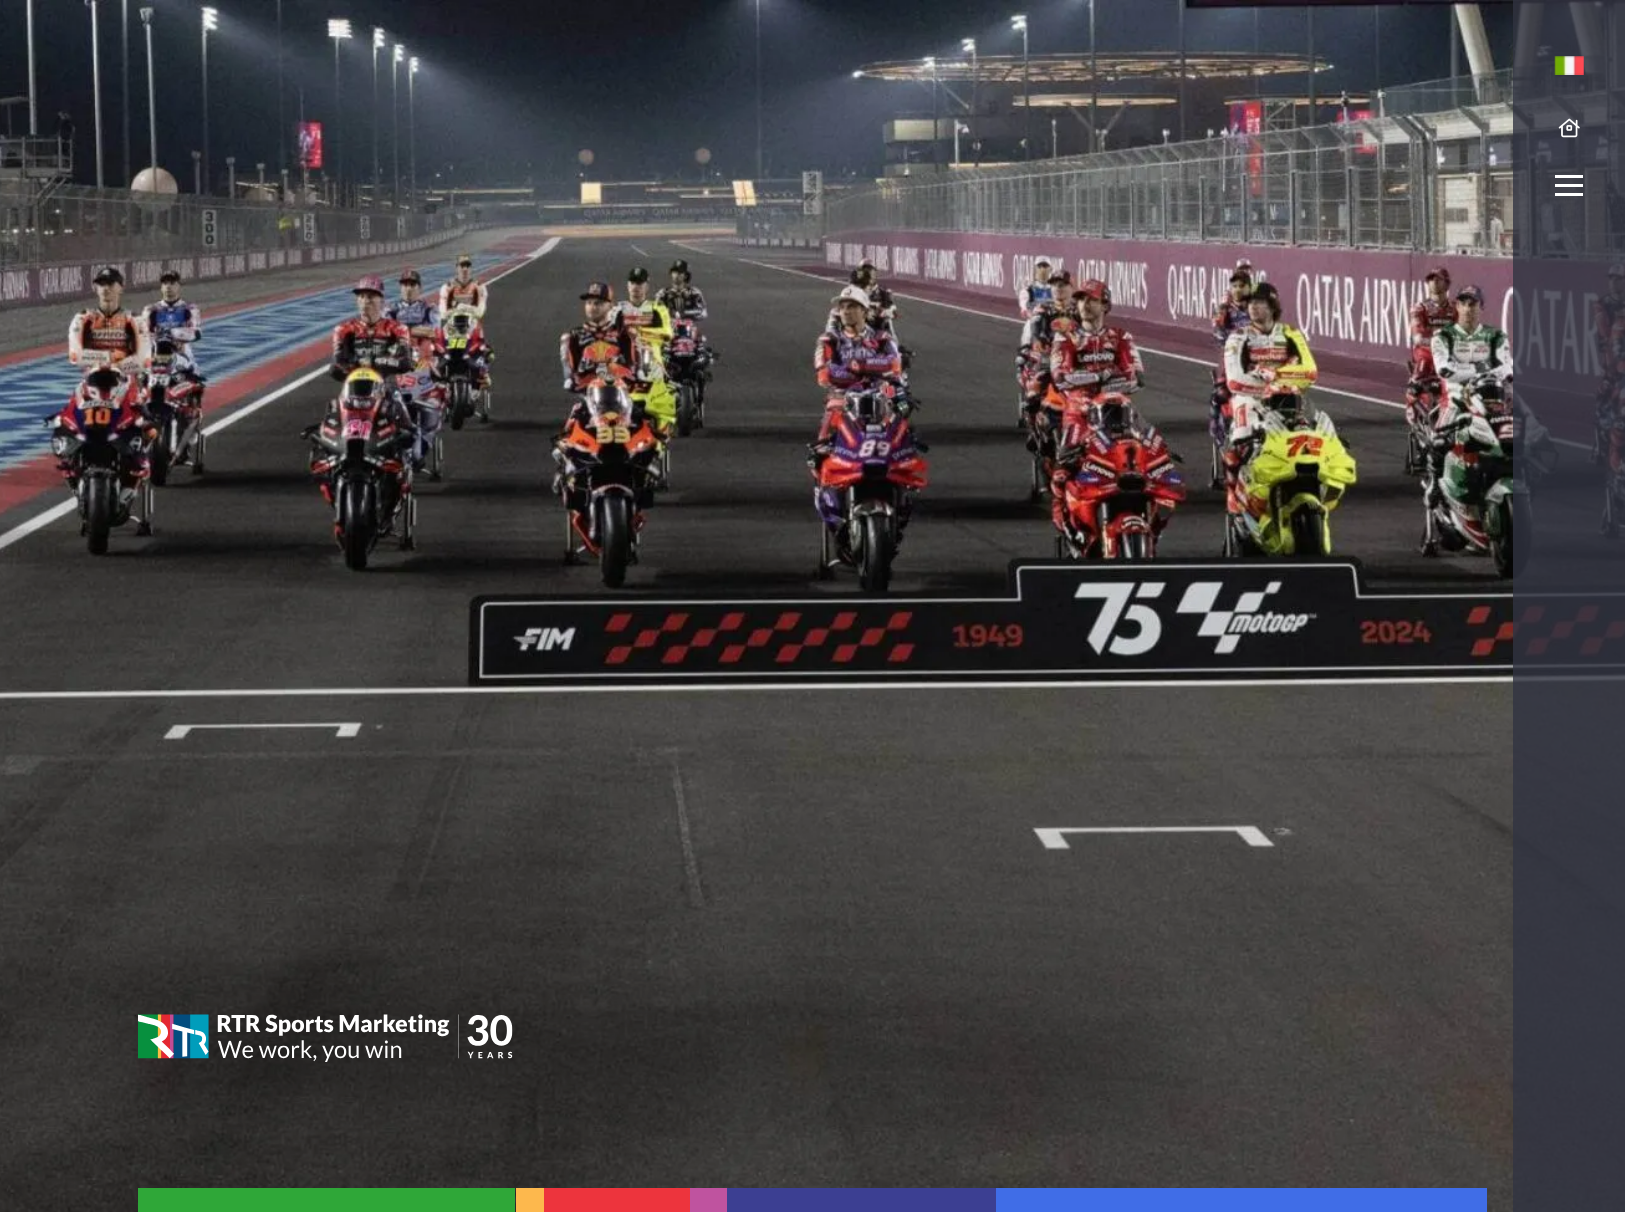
async function draw(canvas) {
  canvas.width = 1625;
  canvas.height = 1212;
  const ctx = canvas.getContext('2d');
  ctx.miterLimit = 4;
  ctx.fontKerning = 'normal';
  function rect(x, y, w, h, color) {
    ctx.fillStyle = color;
    ctx.fillRect(x, y, w, h);
  }
  async function image(src, x, y, w, h) {
    const img = new Image();
    img.src = src;
    await img.decode();
    ctx.drawImage(img, x, y, w, h);
  }

  rect(0, 0, 1625, 1212, '#fff');
  await image('assets/img1.png', 0, 0, 1625, 1212);
  ctx.fillStyle = '#00000047';
  ctx.filter = 'blur(40px)';
  ctx.beginPath();
  ctx.rect(138, 1014, 1012, 86);
  ctx.fill();
  ctx.filter = 'none';
  await image('assets/img2.png', 138, 1014, 375, 48);
  rect(996, 1188, 491, 24, '#406de7');
  rect(138, 1188, 377, 24, '#2fa738');
  rect(727, 1188, 269, 24, '#3c3f92');
  rect(544, 1188, 146, 24, '#ed343d');
  rect(516, 1188, 28, 24, '#fdb84d');
  rect(690, 1188, 37, 24, '#bf539f');
  rect(1513, 0, 112, 1212, '#313341cc');
  await image('assets/img3.png', 1554, 56, 30, 19);
  await image('assets/img4.png', 1558, 118, 22, 20);
  rect(1555, 175, 28, 3, '#fff');
  rect(1555, 184, 28, 3, '#fff');
  rect(1555, 193, 28, 3, '#fff');
}

draw(document.querySelector('canvas'));
